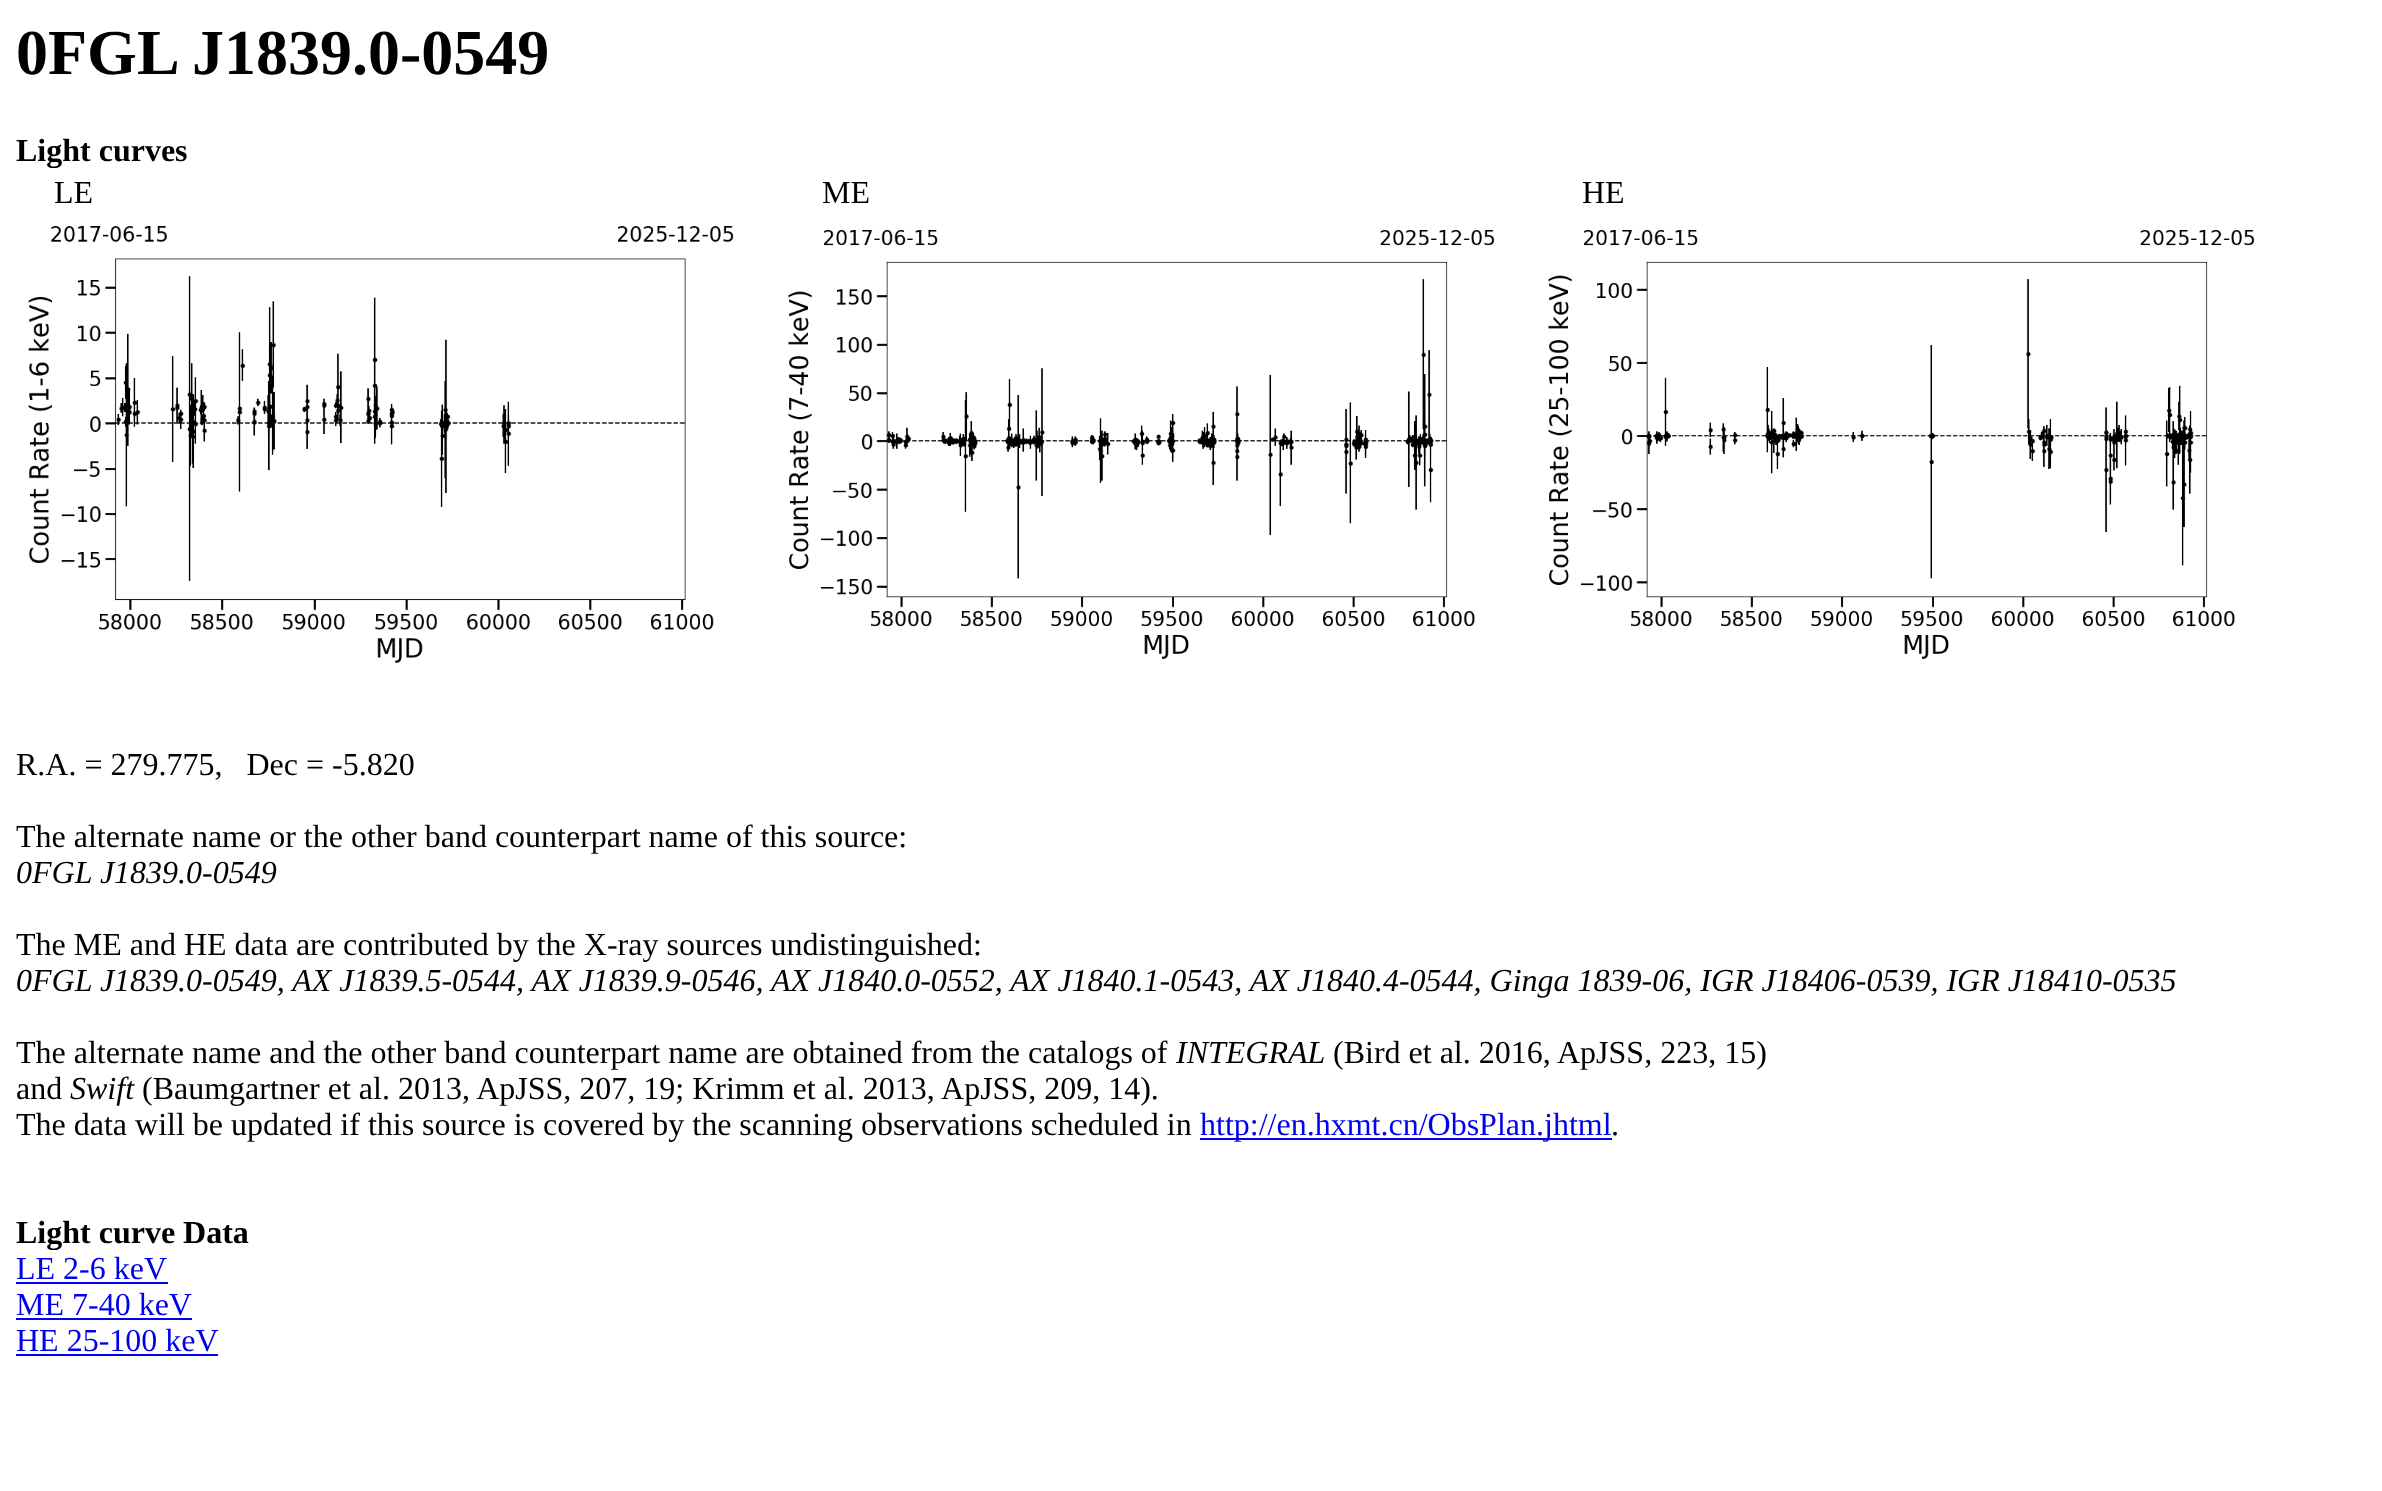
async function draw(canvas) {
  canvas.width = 2382;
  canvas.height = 1491;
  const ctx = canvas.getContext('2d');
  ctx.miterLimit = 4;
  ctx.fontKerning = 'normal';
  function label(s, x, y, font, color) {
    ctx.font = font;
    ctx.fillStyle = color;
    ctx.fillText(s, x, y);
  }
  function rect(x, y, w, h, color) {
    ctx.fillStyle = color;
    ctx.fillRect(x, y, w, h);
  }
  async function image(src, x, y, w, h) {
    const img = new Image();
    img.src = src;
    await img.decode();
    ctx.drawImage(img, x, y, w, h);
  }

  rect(0, 0, 2382, 1491, '#fff');
  label('0FGL J1839.0-0549', 16, 74, 'bold 64px Liberation Serif', '#000');
  label('Light curves', 16, 161, 'bold 32px Liberation Serif', '#000');
  label('LE', 54, 203, '32px Liberation Serif', '#000');
  label('ME', 822, 203, '32px Liberation Serif', '#000');
  label('HE', 1582, 203, '32px Liberation Serif', '#000');
  await image('assets/img1.png', 28, 226, 706, 437);
  await image('assets/img2.png', 788, 230, 706, 429);
  await image('assets/img3.png', 1548, 230, 706, 429);
  label('R.A. = 279.775,   Dec = -5.820', 16, 775, '32px Liberation Serif', '#000');
  label('The alternate name or the other band counterpart name of this source:', 16, 847, '32px Liberation Serif', '#000');
  label('0FGL J1839.0-0549', 16, 883, 'italic 32px Liberation Serif', '#000');
  label('The ME and HE data are contributed by the X-ray sources undistinguished:', 16, 955, '32px Liberation Serif', '#000');
  label('0FGL J1839.0-0549, AX J1839.5-0544, AX J1839.9-0546, AX J1840.0-0552, AX J1840.1-0543, AX J1840.4-0544, Ginga 1839-06, IGR J18406-0539, IGR J18410-0535', 16, 991, 'italic 32px Liberation Serif', '#000');
  label('The alternate name and the other band counterpart name are obtained from the catalogs of', 16, 1063, '32px Liberation Serif', '#000');
  label('INTEGRAL', 1176, 1063, 'italic 32px Liberation Serif', '#000');
  label('(Bird et al. 2016, ApJSS, 223, 15)', 1333, 1063, '32px Liberation Serif', '#000');
  label('and', 16, 1099, '32px Liberation Serif', '#000');
  label('Swift', 70, 1099, 'italic 32px Liberation Serif', '#000');
  label('(Baumgartner et al. 2013, ApJSS, 207, 19; Krimm et al. 2013, ApJSS, 209, 14).', 142, 1099, '32px Liberation Serif', '#000');
  label('The data will be updated if this source is covered by the scanning observations scheduled in', 16, 1135, '32px Liberation Serif', '#000');
  rect(1200, 1138, 412, 2, '#00e');
  label('http://en.hxmt.cn/ObsPlan.jhtml', 1200, 1135, '32px Liberation Serif', '#00e');
  label('.', 1611, 1135, '32px Liberation Serif', '#000');
  label('Light curve Data', 16, 1243, 'bold 32px Liberation Serif', '#000');
  label('LE 2-6 keV', 16, 1279, '32px Liberation Serif', '#00e');
  rect(16, 1282, 152, 2, '#00e');
  label('ME 7-40 keV', 16, 1315, '32px Liberation Serif', '#00e');
  rect(16, 1318, 176, 2, '#00e');
  label('HE 25-100 keV', 16, 1351, '32px Liberation Serif', '#00e');
  rect(16, 1354, 202, 2, '#00e');
}

draw(document.querySelector('canvas'));
